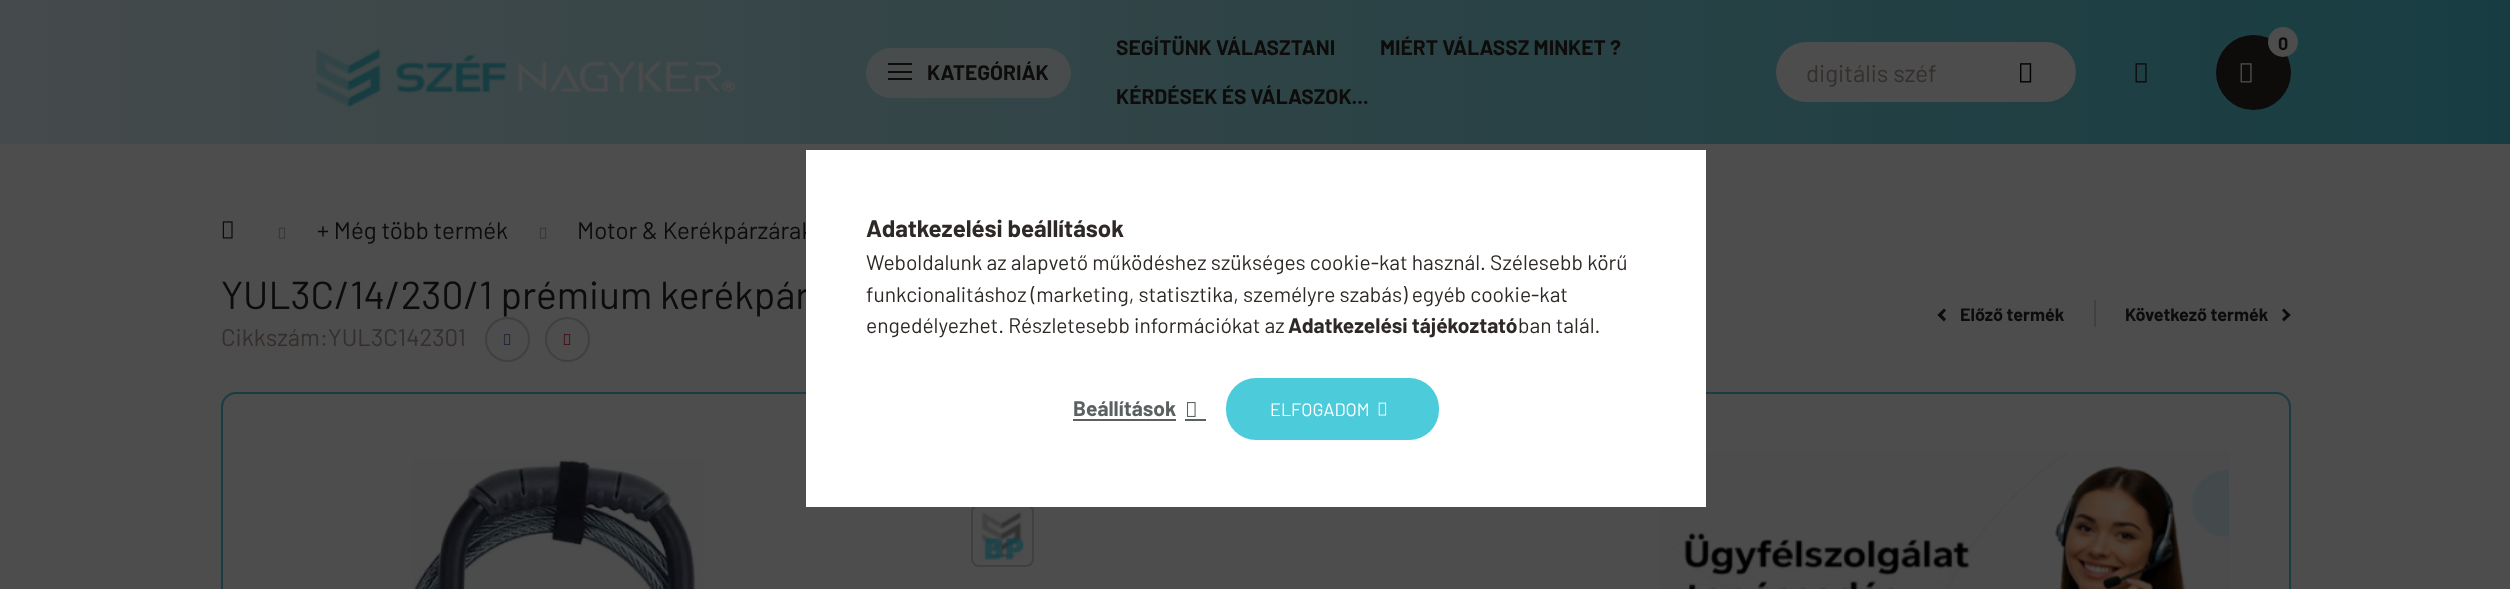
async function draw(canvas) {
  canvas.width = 2510;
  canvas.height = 589;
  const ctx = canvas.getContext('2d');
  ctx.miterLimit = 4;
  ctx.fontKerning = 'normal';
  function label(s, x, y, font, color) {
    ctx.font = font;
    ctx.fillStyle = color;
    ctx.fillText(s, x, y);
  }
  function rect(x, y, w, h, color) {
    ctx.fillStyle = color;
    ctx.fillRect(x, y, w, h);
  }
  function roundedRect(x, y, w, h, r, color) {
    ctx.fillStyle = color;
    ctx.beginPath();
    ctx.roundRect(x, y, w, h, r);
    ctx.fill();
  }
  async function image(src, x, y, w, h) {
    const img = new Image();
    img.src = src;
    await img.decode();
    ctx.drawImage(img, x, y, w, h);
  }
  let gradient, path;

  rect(0, 0, 2510, 589, '#4d4d4d');
  gradient = ctx.createLinearGradient(0, 295, 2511, 295);
  gradient.addColorStop(0, '#454a4b');
  gradient.addColorStop(1, '#173d42');
  ctx.fillStyle = gradient;
  ctx.fillRect(0, 0, 2510, 144);
  await image('assets/img1.png', 316, 49, 420, 58);
  roundedRect(866, 48, 205, 50, 25, '#4d4d4dcc');
  rect(888, 63, 24, 2, '#0e0c0b');
  rect(888, 71, 24, 2, '#0e0c0b');
  rect(888, 78, 24, 2, '#0e0c0b');
  label('KATEGÓRIÁK', 927, 80, 'bold 21px Barlow', '#0e0c0b');
  label('SEGÍTÜNK VÁLASZTANI', 1116, 55, 'bold 21px Barlow', '#0e0c0b');
  label('MIÉRT VÁLASSZ MINKET ?', 1380, 55, 'bold 21px Barlow', '#0e0c0b');
  label('KÉRDÉSEK ÉS VÁLASZOK...', 1116, 104, 'bold 21px Barlow', '#0e0c0b');
  ctx.beginPath();
  ctx.arc(2253.5, 72.5, 37.5, 0, 2 * Math.PI);
  ctx.fill();
  ctx.fillStyle = '#4d4d4d';
  ctx.beginPath();
  ctx.arc(2283, 42, 15, 0, 2 * Math.PI);
  ctx.fill();
  label('0', 2278, 50, 'bold 18px Barlow', '#0e0c0b');
  await image('assets/img2.png', 2240, 63, 12, 20);
  roundedRect(1776, 42, 300, 60, 30, '#4d4d4d');
  label('digitális széf', 1806, 82, '24px Barlow', '#342f2c');
  await image('assets/img3.png', 2020, 63, 12, 20);
  await image('assets/img4.png', 2135, 63, 12, 20);
  await image('assets/img5.png', 222, 221, 11, 18);
  await image('assets/img6.png', 278, 227, 8, 12);
  label('+ Még több termék', 317, 239, '24px Barlow', '#0e0c0b');
  await image('assets/img6.png', 539, 227, 8, 12);
  label('Motor & Kerékpárzárak', 577, 239, '24px Barlow', '#0e0c0b');
  label('YUL3C/14/230/1 prémium kerékpár', 221, 309, '39px Barlow', '#0e0c0b');
  path = new Path2D('M1937.5 315L1944 308.5L1946 310.5L1940 317Z');
  ctx.fill(path);
  path = new Path2D('M1940 313L1946 319L1944 321.5L1937.5 315Z');
  ctx.fill(path);
  label('Előző termék', 1960, 321, 'bold 18px Barlow', '#0e0c0b');
  rect(2094, 300, 2, 27, '#404040');
  label('Következő termék', 2125, 321, 'bold 18px Barlow', '#0e0c0b');
  path = new Path2D('M2282 319L2288.5 313L2290.5 315L2284 321.5Z');
  ctx.fill(path);
  path = new Path2D('M2284 308.5L2290.5 315L2288.5 317L2282 310.5Z');
  ctx.fill(path);
  label('Cikkszám:YUL3C142301', 221, 346, '24px Barlow', '#342f2c');
  ctx.beginPath();
  ctx.arc(507.5, 339.5, 21.5, 0, 2 * Math.PI);
  ctx.strokeStyle = '#404040';
  ctx.lineWidth = 2;
  ctx.stroke();
  await image('assets/img7.png', 503, 334, 8, 11);
  ctx.beginPath();
  ctx.arc(567.5, 339.5, 21.5, 0, 2 * Math.PI);
  ctx.stroke();
  await image('assets/img8.png', 563, 334, 8, 11);
  ctx.beginPath();
  ctx.roundRect(222, 393, 2068, 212, 14);
  ctx.strokeStyle = '#173d42';
  ctx.stroke();
  await image('assets/img9.png', 413, 459, 290, 130);
  ctx.beginPath();
  ctx.roundRect(972, 505, 61, 61, 7);
  ctx.strokeStyle = '#404040';
  ctx.stroke();
  await image('assets/img10.png', 981, 511, 44, 49);
  await image('assets/img11.png', 1660, 453, 569, 136);
  rect(806, 150, 900, 357, '#fff');
  label('Adatkezelési beállítások', 866, 237, 'bold 24px Barlow', '#2e2926');
  label('Weboldalunk az alapvető működéshez szükséges cookie-kat használ. Szélesebb körű', 866, 270, '21px Barlow', '#2e2926');
  label('funkcionalitáshoz (marketing, statisztika, személyre szabás) egyéb cookie-kat', 866, 302, '21px Barlow', '#2e2926');
  label('engedélyezhet. Részletesebb információkat az', 866, 333, '21px Barlow', '#2e2926');
  label('Adatkezelési tájékoztató', 1288, 333, 'bold 21px Barlow', '#2e2926');
  label('ban talál.', 1518, 333, '21px Barlow', '#2e2926');
  label('Beállítások', 1073, 416, 'bold 21px Barlow', '#5b6161');
  rect(1073, 419, 103, 2, '#5b6161');
  await image('assets/img12.png', 1186, 402, 10, 15);
  rect(1185, 419, 21, 2, '#5b6161');
  gradient = ctx.createLinearGradient(1226, 409, 1865, 409);
  gradient.addColorStop(0.33, '#4ccbdb');
  gradient.addColorStop(0.67, '#5b6161');
  ctx.fillStyle = gradient;
  ctx.beginPath();
  ctx.roundRect(1226, 378, 213, 62, 30);
  ctx.fill();
  label('ELFOGADOM', 1270, 416, '18px Barlow', '#fff');
  await image('assets/img13.png', 1378, 402, 9, 14);
}

draw(document.querySelector('canvas'));
